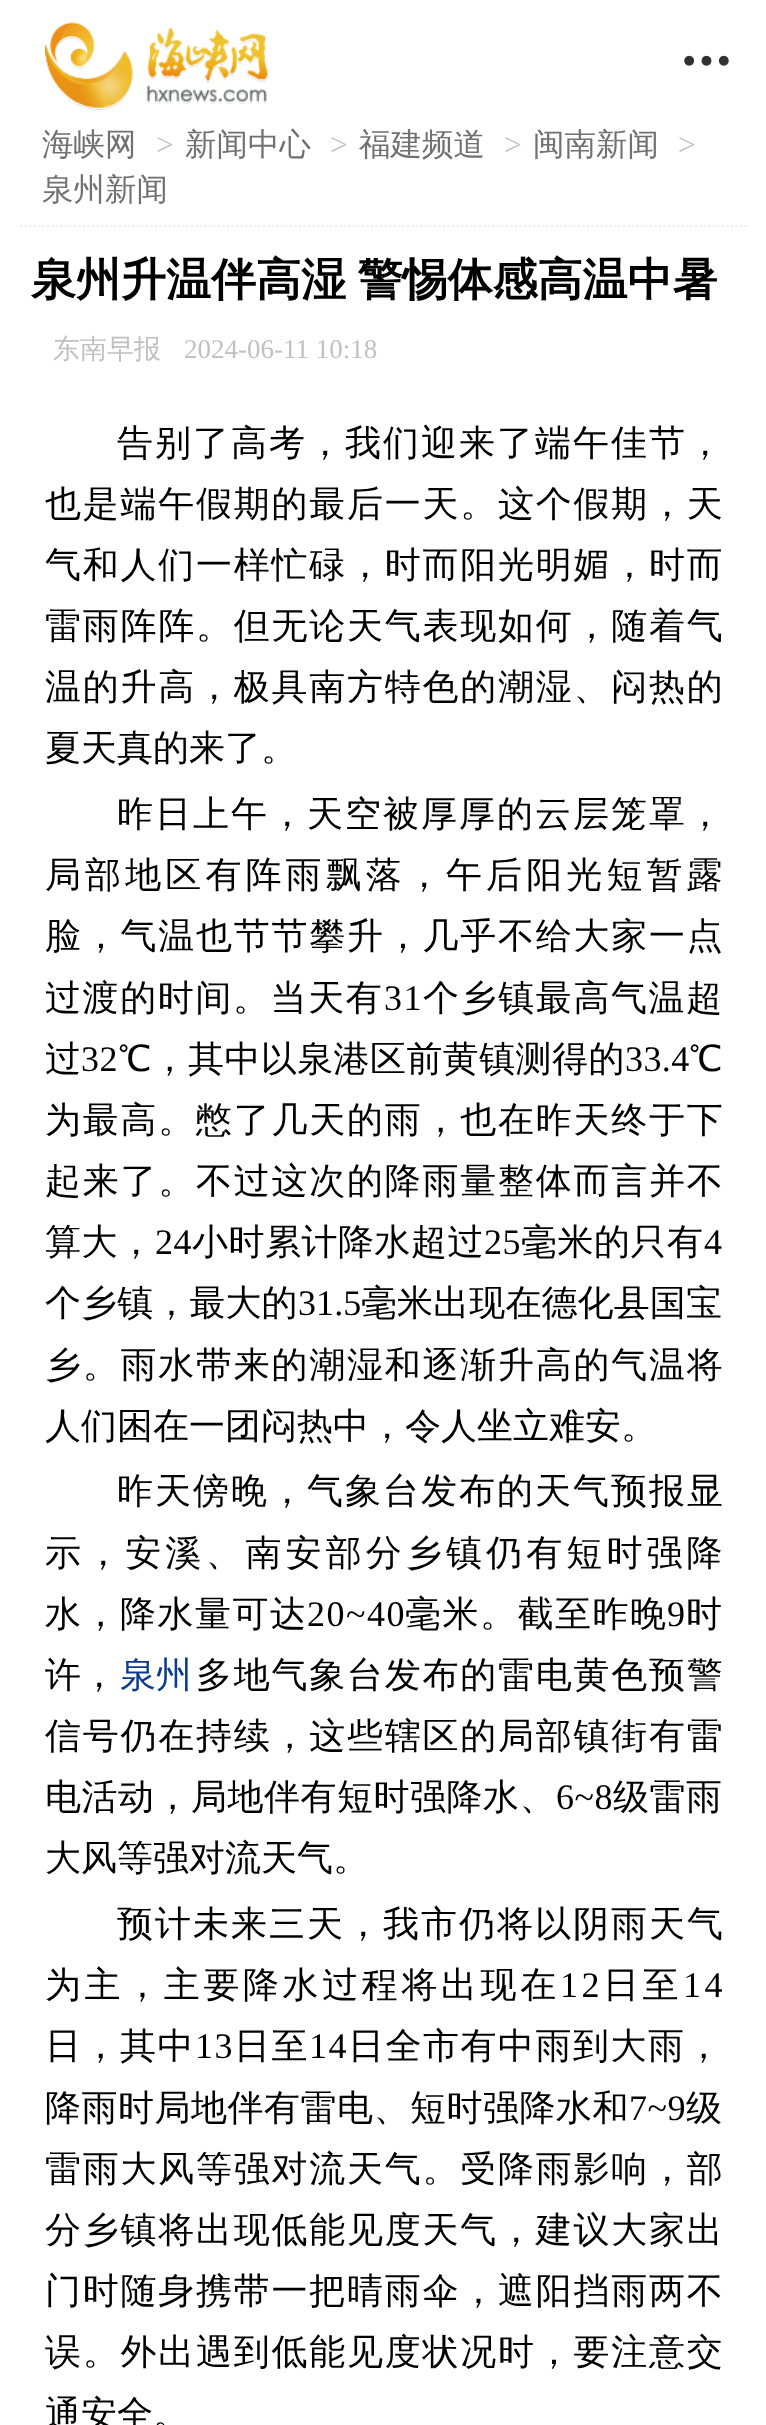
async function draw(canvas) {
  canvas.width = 766;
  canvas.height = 2425;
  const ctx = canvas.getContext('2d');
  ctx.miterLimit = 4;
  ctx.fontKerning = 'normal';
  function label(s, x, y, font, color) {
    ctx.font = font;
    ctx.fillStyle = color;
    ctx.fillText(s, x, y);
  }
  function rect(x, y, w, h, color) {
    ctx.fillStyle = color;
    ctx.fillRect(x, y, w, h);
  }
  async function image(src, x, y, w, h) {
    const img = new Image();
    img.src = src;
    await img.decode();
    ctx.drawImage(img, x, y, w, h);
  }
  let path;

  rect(0, 0, 766, 2425, '#fff');
  await image('assets/img1.png', 45, 22, 223, 89);
  await image('assets/img2.png', 684, 55, 45, 11);
  path = new Path2D('M20 226H747');
  ctx.strokeStyle = '#eee';
  ctx.lineWidth = 2.2;
  ctx.setLineDash([2.25, 2.25]);
  ctx.stroke(path);
  label('海峡网', 42, 155, '500 31.5px WenQuanYi Zen Hei', '#717173');
  label('>', 156, 155, '31.5px Liberation Serif', '#c1c1c1');
  label('新闻中心', 185, 155, '500 31.5px WenQuanYi Zen Hei', '#717173');
  label('>', 330, 155, '31.5px Liberation Serif', '#c1c1c1');
  label('福建频道', 359, 155, '500 31.5px WenQuanYi Zen Hei', '#717173');
  label('>', 504, 155, '31.5px Liberation Serif', '#c1c1c1');
  label('闽南新闻', 533, 155, '500 31.5px WenQuanYi Zen Hei', '#717173');
  label('>', 678, 155, '31.5px Liberation Serif', '#c1c1c1');
  label('泉州新闻', 42, 200, '500 31.5px WenQuanYi Zen Hei', '#717173');
  ctx.wordSpacing = '-2px';
  label('泉州升温伴高湿 警惕体感高温中暑', 31, 295, 'bold 45px WenQuanYi Zen Hei', '#000');
  ctx.wordSpacing = '0px';
  label('东南早报', 53, 358, '500 27px WenQuanYi Zen Hei', '#c1c1c1');
  label('2024-06-11 10:18', 184, 358, '27px Liberation Serif', '#c1c1c1');
  ctx.letterSpacing = '2px';
  label('告别了高考，我们迎来了端午佳节，', 117, 455, '500 36px WenQuanYi Zen Hei', '#000');
  ctx.letterSpacing = '1.75px';
  label('也是端午假期的最后一天。这个假期，天', 45, 516, '500 36px WenQuanYi Zen Hei', '#000');
  label('气和人们一样忙碌，时而阳光明媚，时而', 45, 577, '500 36px WenQuanYi Zen Hei', '#000');
  label('雷雨阵阵。但无论天气表现如何，随着气', 45, 638, '500 36px WenQuanYi Zen Hei', '#000');
  label('温的升高，极具南方特色的潮湿、闷热的', 45, 699, '500 36px WenQuanYi Zen Hei', '#000');
  ctx.letterSpacing = '0px';
  label('夏天真的来了。', 45, 760, '500 36px WenQuanYi Zen Hei', '#000');
  ctx.letterSpacing = '2px';
  label('昨日上午，天空被厚厚的云层笼罩，', 117, 826, '500 36px WenQuanYi Zen Hei', '#000');
  ctx.letterSpacing = '4.1px';
  label('局部地区有阵雨飘落，午后阳光短暂露', 45, 887, '500 36px WenQuanYi Zen Hei', '#000');
  ctx.letterSpacing = '1.75px';
  label('脸，气温也节节攀升，几乎不给大家一点', 45, 948, '500 36px WenQuanYi Zen Hei', '#000');
  ctx.letterSpacing = '1.6px';
  label('过渡的时间。当天有', 45, 1010, '500 36px WenQuanYi Zen Hei', '#000');
  label('31', 384, 1010, '36px Liberation Serif', '#000');
  label('个乡镇最高气温超', 423, 1010, '500 36px WenQuanYi Zen Hei', '#000');
  ctx.letterSpacing = '0.4px';
  label('过', 45, 1071, '500 36px WenQuanYi Zen Hei', '#000');
  label('32', 81, 1071, '36px Liberation Serif', '#000');
  label('℃，其中以泉港区前黄镇测得的', 118, 1071, '500 36px WenQuanYi Zen Hei', '#000');
  label('33.4', 625, 1071, '36px Liberation Serif', '#000');
  label('℃', 689, 1071, '500 36px WenQuanYi Zen Hei', '#000');
  ctx.letterSpacing = '1.75px';
  label('为最高。憋了几天的雨，也在昨天终于下', 45, 1132, '500 36px WenQuanYi Zen Hei', '#000');
  label('起来了。不过这次的降雨量整体而言并不', 45, 1193, '500 36px WenQuanYi Zen Hei', '#000');
  ctx.letterSpacing = '0.5px';
  label('算大，', 45, 1254, '500 36px WenQuanYi Zen Hei', '#000');
  label('24', 155, 1254, '36px Liberation Serif', '#000');
  label('小时累计降水超过', 192, 1254, '500 36px WenQuanYi Zen Hei', '#000');
  label('25', 484, 1254, '36px Liberation Serif', '#000');
  label('毫米的只有', 521, 1254, '500 36px WenQuanYi Zen Hei', '#000');
  label('4', 704, 1254, '36px Liberation Serif', '#000');
  ctx.letterSpacing = '0.1px';
  label('个乡镇，最大的', 45, 1315, '500 36px WenQuanYi Zen Hei', '#000');
  label('31.5', 298, 1315, '36px Liberation Serif', '#000');
  label('毫米出现在德化县国宝', 361, 1315, '500 36px WenQuanYi Zen Hei', '#000');
  ctx.letterSpacing = '1.75px';
  label('乡。雨水带来的潮湿和逐渐升高的气温将', 45, 1377, '500 36px WenQuanYi Zen Hei', '#000');
  ctx.letterSpacing = '0px';
  label('人们困在一团闷热中，令人坐立难安。', 45, 1438, '500 36px WenQuanYi Zen Hei', '#000');
  ctx.letterSpacing = '2px';
  label('昨天傍晚，气象台发布的天气预报显', 117, 1503, '500 36px WenQuanYi Zen Hei', '#000');
  ctx.letterSpacing = '4.1px';
  label('示，安溪、南安部分乡镇仍有短时强降', 45, 1565, '500 36px WenQuanYi Zen Hei', '#000');
  ctx.letterSpacing = '1.5px';
  label('水，降水量可达', 45, 1626, '500 36px WenQuanYi Zen Hei', '#000');
  label('20~40', 307, 1626, '36px Liberation Serif', '#000');
  label('毫米。截至昨晚', 405, 1626, '500 36px WenQuanYi Zen Hei', '#000');
  label('9', 667, 1626, '36px Liberation Serif', '#000');
  label('时', 686, 1626, '500 36px WenQuanYi Zen Hei', '#000');
  ctx.letterSpacing = '0px';
  label('许，', 45, 1687, '500 36px WenQuanYi Zen Hei', '#000');
  label('泉州', 120, 1687, '500 36px WenQuanYi Zen Hei', '#0b3b8c');
  ctx.letterSpacing = '1.75px';
  label('多地气象台发布的雷电黄色预警', 196, 1687, '500 36px WenQuanYi Zen Hei', '#000');
  label('信号仍在持续，这些辖区的局部镇街有雷', 45, 1748, '500 36px WenQuanYi Zen Hei', '#000');
  ctx.letterSpacing = '0.5px';
  label('电活动，局地伴有短时强降水、', 45, 1809, '500 36px WenQuanYi Zen Hei', '#000');
  label('6~8', 556, 1809, '36px Liberation Serif', '#000');
  label('级雷雨', 613, 1809, '500 36px WenQuanYi Zen Hei', '#000');
  ctx.letterSpacing = '0px';
  label('大风等强对流天气。', 45, 1870, '500 36px WenQuanYi Zen Hei', '#000');
  ctx.letterSpacing = '2px';
  label('预计未来三天，我市仍将以阴雨天气', 117, 1936, '500 36px WenQuanYi Zen Hei', '#000');
  ctx.letterSpacing = '3.6px';
  label('为主，主要降水过程将出现在', 45, 1997, '500 36px WenQuanYi Zen Hei', '#000');
  label('12', 560, 1997, '36px Liberation Serif', '#000');
  label('日至', 603, 1997, '500 36px WenQuanYi Zen Hei', '#000');
  label('14', 683, 1997, '36px Liberation Serif', '#000');
  ctx.letterSpacing = '1.5px';
  label('日，其中', 45, 2058, '500 36px WenQuanYi Zen Hei', '#000');
  label('13', 195, 2058, '36px Liberation Serif', '#000');
  label('日至', 234, 2058, '500 36px WenQuanYi Zen Hei', '#000');
  label('14', 309, 2058, '36px Liberation Serif', '#000');
  label('日全市有中雨到大雨，', 348, 2058, '500 36px WenQuanYi Zen Hei', '#000');
  ctx.letterSpacing = '0.5px';
  label('降雨时局地伴有雷电、短时强降水和', 45, 2120, '500 36px WenQuanYi Zen Hei', '#000');
  label('7~9', 629, 2120, '36px Liberation Serif', '#000');
  label('级', 686, 2120, '500 36px WenQuanYi Zen Hei', '#000');
  ctx.letterSpacing = '1.75px';
  label('雷雨大风等强对流天气。受降雨影响，部', 45, 2181, '500 36px WenQuanYi Zen Hei', '#000');
  label('分乡镇将出现低能见度天气，建议大家出', 45, 2242, '500 36px WenQuanYi Zen Hei', '#000');
  label('门时随身携带一把晴雨伞，遮阳挡雨两不', 45, 2303, '500 36px WenQuanYi Zen Hei', '#000');
  label('误。外出遇到低能见度状况时，要注意交', 45, 2364, '500 36px WenQuanYi Zen Hei', '#000');
  ctx.letterSpacing = '0px';
  label('通安全。', 45, 2426, '500 36px WenQuanYi Zen Hei', '#000');
}

draw(document.querySelector('canvas'));
